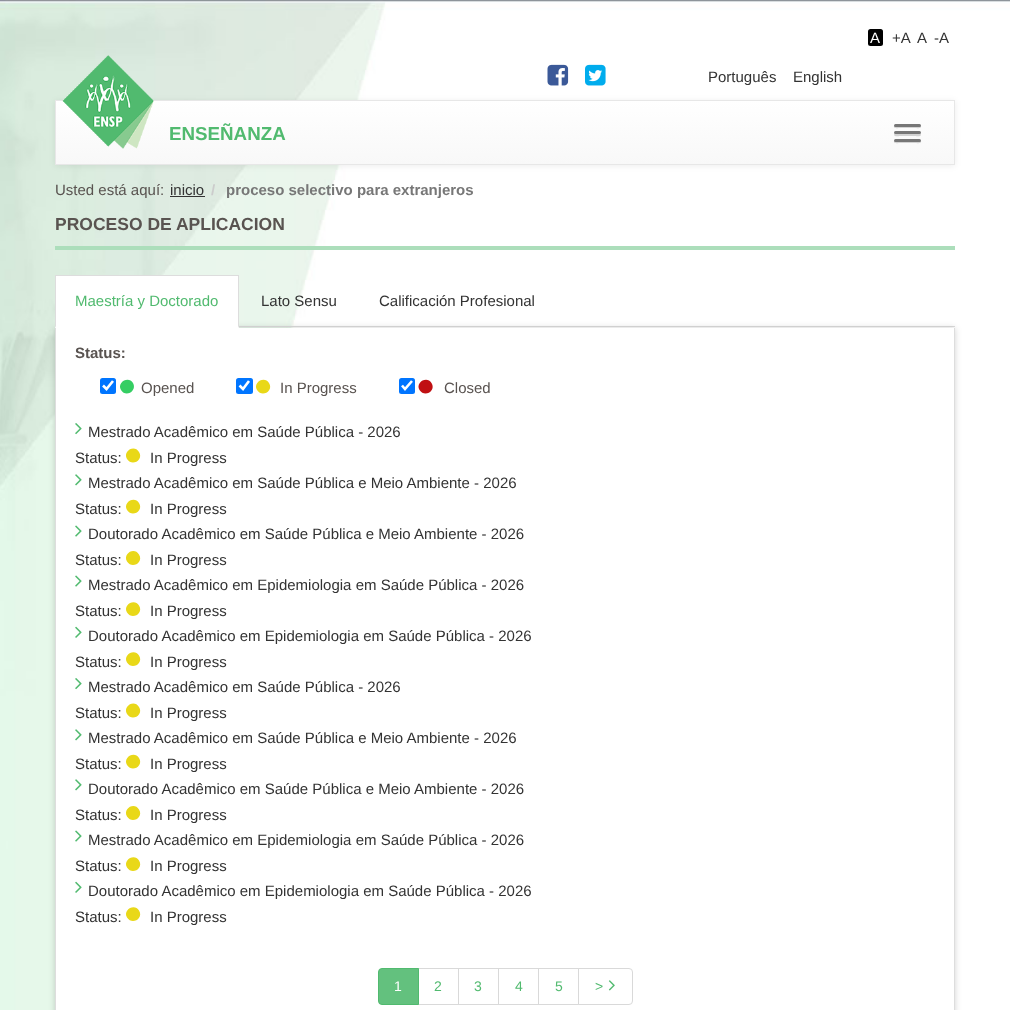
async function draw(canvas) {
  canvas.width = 1010;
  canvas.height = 1010;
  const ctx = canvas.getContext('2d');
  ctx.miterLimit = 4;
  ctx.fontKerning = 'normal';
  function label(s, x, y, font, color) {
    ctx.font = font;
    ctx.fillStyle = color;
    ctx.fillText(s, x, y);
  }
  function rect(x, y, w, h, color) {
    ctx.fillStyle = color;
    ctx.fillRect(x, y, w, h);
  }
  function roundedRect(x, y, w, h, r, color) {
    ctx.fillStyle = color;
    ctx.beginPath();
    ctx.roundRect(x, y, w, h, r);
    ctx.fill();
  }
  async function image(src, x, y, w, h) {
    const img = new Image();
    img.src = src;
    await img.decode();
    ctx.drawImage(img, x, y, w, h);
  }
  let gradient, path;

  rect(0, 0, 1010, 1010, '#fff');
  await image('assets/img1.png', 0, 0, 1010, 1010);
  roundedRect(868, 29, 15, 17, 2.5, '#000');
  label('A', 870, 43, '15px Liberation Sans', '#fff');
  label('+A', 892, 43, '15px Liberation Sans', '#333');
  label('A', 917, 43, '15px Liberation Sans', '#333');
  label('-A', 934, 43, '15px Liberation Sans', '#333');
  await image('assets/img2.png', 547, 64, 22, 22);
  await image('assets/img3.png', 585, 64, 21, 22);
  label('Português', 708, 82, '15px Liberation Sans', '#333');
  label('English', 793, 82, '15px Liberation Sans', '#333');
  ctx.fillStyle = '#00000012';
  ctx.filter = 'blur(3px)';
  ctx.beginPath();
  ctx.rect(55, 101, 900, 65);
  ctx.fill();
  ctx.filter = 'none';
  gradient = ctx.createLinearGradient(505, 101, 505, 164);
  gradient.addColorStop(0, '#fff');
  gradient.addColorStop(1, '#f8f8f8');
  ctx.fillStyle = gradient;
  ctx.fillRect(56, 101, 898, 63);
  ctx.strokeStyle = '#e7e7e7';
  ctx.strokeRect(55.5, 100.5, 899, 64);
  await image('assets/img4.png', 62, 55, 92, 94);
  label('ENSEÑANZA', 169, 140, 'bold 18.75px Liberation Sans', '#51ba6f');
  ctx.fillStyle = '#d4d4d4';
  path = new Path2D('M894 126C893 129 899 128 899.5 128H915.5C916 128 922 129 921 126C920 126.5 895 126.5 894 126Z');
  ctx.fill(path);
  roundedRect(894, 124, 27, 3, 1.5, '#777');
  ctx.fillStyle = '#d3d3d3';
  path = new Path2D('M894.5 133.5L894 135C894.5 137 899 136 899.5 136H915.5C916 136 920.5 137 921 135L920.5 133.5Z');
  ctx.fill(path);
  roundedRect(894, 131, 27, 3, 1.5, '#777');
  ctx.fillStyle = '#d3d3d3';
  path = new Path2D('M894 141C893 144 899 143 899.5 143H915.5C916 143 922 144 921 141C920 141.5 895 141.5 894 141Z');
  ctx.fill(path);
  roundedRect(894, 139, 27, 3, 1.5, '#777');
  label('Usted está aquí:', 55, 195, '15px Liberation Sans', '#595350');
  label('inicio', 170, 195, '15px Liberation Sans', '#333');
  rect(170, 196, 35, 1, '#333');
  label('/', 211, 195, 'bold 15px Liberation Sans', '#ccc');
  label('proceso selectivo para extranjeros', 226, 195, 'bold 15px Liberation Sans', '#777');
  rect(55, 246, 900, 4, '#acdebb');
  label('PROCESO DE APLICACION', 55, 230, 'bold 17.5px Liberation Sans', '#595350');
  rect(239, 326, 716, 1, '#ddd');
  ctx.fillStyle = '#0000002e';
  ctx.filter = 'blur(3px)';
  ctx.beginPath();
  ctx.rect(55, 328, 900, 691);
  ctx.fill();
  ctx.filter = 'none';
  rect(55, 276, 184, 52, '#fff');
  rect(55, 275, 184, 1, '#ddd');
  path = new Path2D('M239 275V328L238 326V276Z');
  ctx.fill(path);
  path = new Path2D('M55 328V275L56 276V326Z');
  ctx.fill(path);
  label('Maestría y Doctorado', 75, 306, '15px Liberation Sans', '#51ba6f');
  label('Lato Sensu', 261, 306, '15px Liberation Sans', '#333');
  label('Calificación Profesional', 379, 306, '15px Liberation Sans', '#333');
  rect(56, 328, 898, 682, '#fff');
  rect(954, 328, 1, 682, '#ddd');
  rect(55, 328, 1, 682, '#ddd');
  label('Status:', 75, 358, 'bold 15px Liberation Sans', '#595350');
  roundedRect(100, 378, 16, 16, 2.5, '#0075ff');
  path = new Path2D('M103 385.5L106.5 389L113 381');
  ctx.strokeStyle = '#fff';
  ctx.lineWidth = 2.6;
  ctx.stroke(path);
  ctx.fillStyle = '#35ce63';
  path = new Path2D('M133 383C137.5 391 125.5 398 121 390C116.5 382.5 128.5 375.5 133 383Z');
  ctx.fill(path);
  label('Opened', 141, 393, '15px Liberation Sans', '#595350');
  roundedRect(236, 378, 17, 16, 2.5, '#0075ff');
  path = new Path2D('M239.5 385.5L243 389L249 381');
  ctx.stroke(path);
  ctx.fillStyle = '#e9d818';
  path = new Path2D('M269 383C274 391 262 398 257 390C252.5 382.5 264.5 375.5 269 383Z');
  ctx.fill(path);
  label('In Progress', 280, 393, '15px Liberation Sans', '#595350');
  roundedRect(399, 378, 16, 16, 2.5, '#0075ff');
  path = new Path2D('M402 385.5L405 389L412 381');
  ctx.stroke(path);
  ctx.fillStyle = '#c01013';
  path = new Path2D('M431.5 383C436.5 391 424.5 398 419.5 390C415 382.5 427 375.5 431.5 383Z');
  ctx.fill(path);
  label('Closed', 444, 393, '15px Liberation Sans', '#595350');
  await image('assets/img5.png', 75, 423, 7, 12);
  label('Mestrado Acadêmico em Saúde Pública - 2026', 88, 437, '15px Liberation Sans', '#333');
  label('Status:', 75, 463, '15px Liberation Sans', '#333');
  ctx.fillStyle = '#e9d818';
  path = new Path2D('M139 452C144 460 132 467 127 459C122.5 451 134.5 444 139 452Z');
  ctx.fill(path);
  label('In Progress', 150, 463, '15px Liberation Sans', '#333');
  await image('assets/img6.png', 75, 474, 7, 12);
  label('Mestrado Acadêmico em Saúde Pública e Meio Ambiente - 2026', 88, 488, '15px Liberation Sans', '#333');
  label('Status:', 75, 514, '15px Liberation Sans', '#333');
  ctx.fillStyle = '#e9d818';
  path = new Path2D('M139 503C144 511 132 518 127 510C122.5 502.5 134.5 495.5 139 503Z');
  ctx.fill(path);
  label('In Progress', 150, 514, '15px Liberation Sans', '#333');
  await image('assets/img7.png', 75, 525, 7, 12);
  label('Doutorado Acadêmico em Saúde Pública e Meio Ambiente - 2026', 88, 539, '15px Liberation Sans', '#333');
  label('Status:', 75, 565, '15px Liberation Sans', '#333');
  ctx.fillStyle = '#e9d818';
  path = new Path2D('M139 554.5C144 562.5 132 569.5 127 561.5C122.5 553.5 134.5 546.5 139 554.5Z');
  ctx.fill(path);
  label('In Progress', 150, 565, '15px Liberation Sans', '#333');
  await image('assets/img7.png', 75, 575, 7, 12);
  label('Mestrado Acadêmico em Epidemiologia em Saúde Pública - 2026', 88, 590, '15px Liberation Sans', '#333');
  label('Status:', 75, 616, '15px Liberation Sans', '#333');
  ctx.fillStyle = '#e9d818';
  path = new Path2D('M139 605.5C144 613.5 132 620.5 127 612.5C122.5 605 134.5 598 139 605.5Z');
  ctx.fill(path);
  label('In Progress', 150, 616, '15px Liberation Sans', '#333');
  await image('assets/img8.png', 75, 626, 7, 12);
  label('Doutorado Acadêmico em Epidemiologia em Saúde Pública - 2026', 88, 641, '15px Liberation Sans', '#333');
  label('Status:', 75, 667, '15px Liberation Sans', '#333');
  ctx.fillStyle = '#e9d818';
  path = new Path2D('M139 655.5C144 663.5 132 670.5 127 662.5C122.5 655 134.5 648 139 655.5Z');
  ctx.fill(path);
  label('In Progress', 150, 667, '15px Liberation Sans', '#333');
  await image('assets/img5.png', 75, 678, 7, 12);
  label('Mestrado Acadêmico em Saúde Pública - 2026', 88, 692, '15px Liberation Sans', '#333');
  label('Status:', 75, 718, '15px Liberation Sans', '#333');
  ctx.fillStyle = '#e9d818';
  path = new Path2D('M139 707C144 715 132 722 127 714C122.5 706 134.5 699 139 707Z');
  ctx.fill(path);
  label('In Progress', 150, 718, '15px Liberation Sans', '#333');
  await image('assets/img6.png', 75, 729, 7, 12);
  label('Mestrado Acadêmico em Saúde Pública e Meio Ambiente - 2026', 88, 743, '15px Liberation Sans', '#333');
  label('Status:', 75, 769, '15px Liberation Sans', '#333');
  ctx.fillStyle = '#e9d818';
  path = new Path2D('M139 758C144 766 132 773 127 765C122.5 757.5 134.5 750.5 139 758Z');
  ctx.fill(path);
  label('In Progress', 150, 769, '15px Liberation Sans', '#333');
  await image('assets/img6.png', 75, 779, 7, 12);
  label('Doutorado Acadêmico em Saúde Pública e Meio Ambiente - 2026', 88, 794, '15px Liberation Sans', '#333');
  label('Status:', 75, 820, '15px Liberation Sans', '#333');
  ctx.fillStyle = '#e9d818';
  path = new Path2D('M139 809.5C144 817.5 132 824.5 127 816.5C122.5 808.5 134.5 801.5 139 809.5Z');
  ctx.fill(path);
  label('In Progress', 150, 820, '15px Liberation Sans', '#333');
  await image('assets/img7.png', 75, 830, 7, 12);
  label('Mestrado Acadêmico em Epidemiologia em Saúde Pública - 2026', 88, 845, '15px Liberation Sans', '#333');
  label('Status:', 75, 871, '15px Liberation Sans', '#333');
  ctx.fillStyle = '#e9d818';
  path = new Path2D('M139 860.5C144 868.5 132 875.5 127 867.5C122.5 860 134.5 853 139 860.5Z');
  ctx.fill(path);
  label('In Progress', 150, 871, '15px Liberation Sans', '#333');
  await image('assets/img8.png', 75, 881, 7, 12);
  label('Doutorado Acadêmico em Epidemiologia em Saúde Pública - 2026', 88, 896, '15px Liberation Sans', '#333');
  label('Status:', 75, 922, '15px Liberation Sans', '#333');
  ctx.fillStyle = '#e9d818';
  path = new Path2D('M139 910.5C144 918.5 132 925.5 127 917.5C122.5 910 134.5 903 139 910.5Z');
  ctx.fill(path);
  label('In Progress', 150, 922, '15px Liberation Sans', '#333');
  ctx.strokeStyle = '#d9d9d9';
  ctx.lineWidth = 1;
  ctx.strokeRect(418.5, 968.5, 40, 36);
  ctx.fillStyle = '#63c17e';
  ctx.beginPath();
  ctx.roundRect(378.5, 968.5, 40, 36, [3.5, 0, 0, 3.5]);
  ctx.fill();
  ctx.strokeStyle = '#51ba6f';
  ctx.stroke();
  label('1', 394, 991, '14px Liberation Sans', '#fff');
  label('2', 434, 991, '14px Liberation Sans', '#51ba6f');
  ctx.strokeStyle = '#d9d9d9';
  ctx.strokeRect(458.5, 968.5, 40, 36);
  label('3', 474, 991, '14px Liberation Sans', '#51ba6f');
  ctx.strokeRect(498.5, 968.5, 40, 36);
  label('4', 515, 991, '14px Liberation Sans', '#51ba6f');
  ctx.strokeRect(538.5, 968.5, 40, 36);
  label('5', 555, 991, '14px Liberation Sans', '#51ba6f');
  ctx.fillStyle = '#fff';
  ctx.beginPath();
  ctx.roundRect(578.5, 968.5, 54, 36, [0, 3.5, 3.5, 0]);
  ctx.fill();
  ctx.stroke();
  label('>', 595, 991, '14px Liberation Sans', '#51ba6f');
  await image('assets/img9.png', 608, 980, 7, 11);
}

draw(document.querySelector('canvas'));
